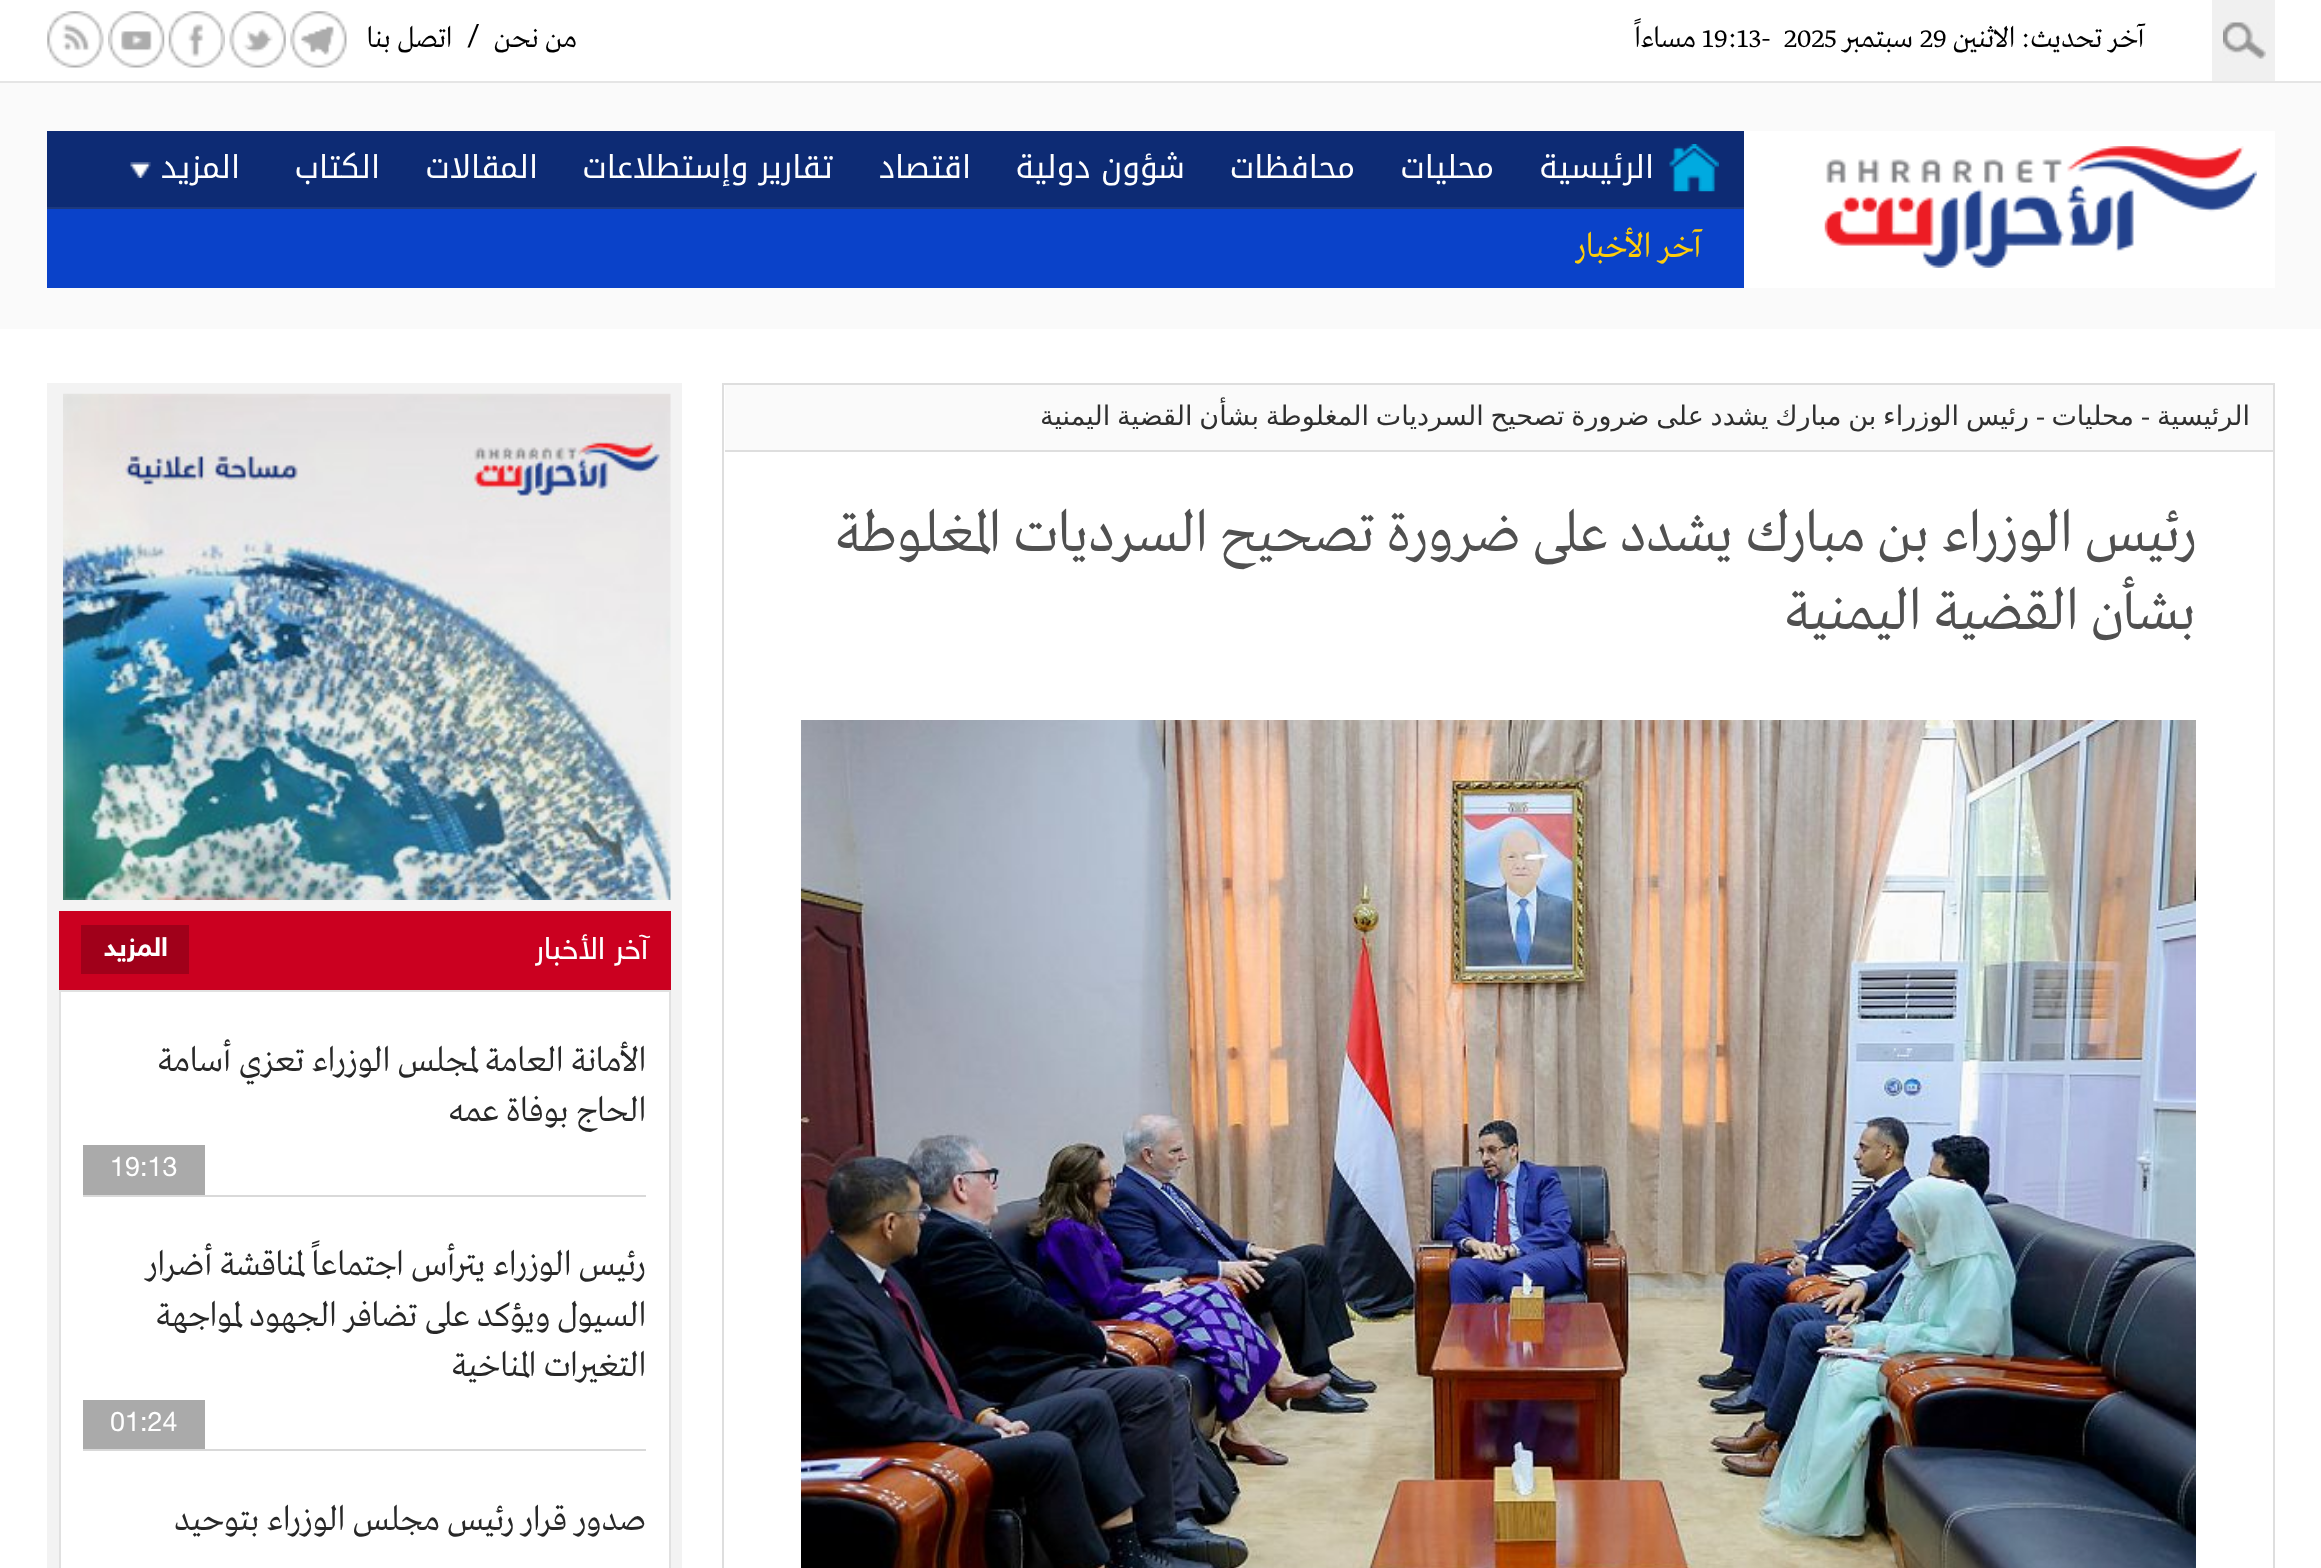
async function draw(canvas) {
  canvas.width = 2321;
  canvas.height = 1568;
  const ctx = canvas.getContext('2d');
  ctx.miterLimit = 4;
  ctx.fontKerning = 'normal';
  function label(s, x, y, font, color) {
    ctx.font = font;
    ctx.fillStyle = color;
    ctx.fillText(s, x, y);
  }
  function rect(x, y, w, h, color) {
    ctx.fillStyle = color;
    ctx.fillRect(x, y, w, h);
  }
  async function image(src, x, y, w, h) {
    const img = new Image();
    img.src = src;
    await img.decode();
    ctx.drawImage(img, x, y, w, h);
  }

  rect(0, 0, 2321, 1568, '#fff');
  rect(0, 81, 2321, 2, '#e5e5e5');
  rect(2212, 0, 63, 81, '#f0f0f0');
  await image('assets/img1.png', 2223, 22, 43, 37);
  ctx.direction = 'rtl';
  label('آخر تحديث:', 2144, 47, '300 30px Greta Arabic', '#000');
  label('الاثنين', 2015, 47, '300 30px Greta Arabic', '#000');
  ctx.direction = 'ltr';
  label('29', 1920, 47, '300 30px Greta Arabic', '#000');
  ctx.direction = 'rtl';
  label('سبتمبر', 1913, 47, '300 30px Greta Arabic', '#000');
  ctx.direction = 'ltr';
  label('2025', 1784, 47, '300 30px Greta Arabic', '#000');
  label('19:13-', 1702, 47, '300 30px Greta Arabic', '#000');
  ctx.direction = 'rtl';
  label('مساءاً', 1696, 47, '300 30px Greta Arabic', '#000');
  label('من نحن', 577, 47, '300 30px Greta Arabic', '#000');
  ctx.direction = 'ltr';
  label('/', 468, 47, '31.5px "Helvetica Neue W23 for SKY"', '#000');
  ctx.direction = 'rtl';
  label('اتصل بنا', 452, 47, '300 30px Greta Arabic', '#000');
  await image('assets/img2.png', 290, 11, 57, 57);
  await image('assets/img3.png', 229, 11, 57, 57);
  await image('assets/img4.png', 168, 11, 57, 57);
  await image('assets/img5.png', 108, 11, 57, 57);
  await image('assets/img6.png', 47, 11, 57, 57);
  rect(0, 83, 2321, 246, '#fafafa');
  rect(1744, 131, 531, 157, '#fff');
  await image('assets/img7.png', 1824, 146, 433, 122);
  rect(47, 131, 1697, 76, '#0d2b74');
  rect(47, 207, 1697, 2, '#1d397d');
  await image('assets/img8.png', 1669, 144, 50, 48);
  label('الرئيسية', 1654, 178, '31.5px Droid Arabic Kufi', '#fff');
  label('محليات', 1494, 178, '31.5px Droid Arabic Kufi', '#fff');
  label('محافظات', 1355, 178, '31.5px Droid Arabic Kufi', '#fff');
  label('شؤون دولية', 1185, 178, '31.5px Droid Arabic Kufi', '#fff');
  label('اقتصاد', 971, 178, '31.5px Droid Arabic Kufi', '#fff');
  label('تقارير وإستطلاعات', 833, 178, '31.5px Droid Arabic Kufi', '#fff');
  label('المقالات', 538, 178, '31.5px Droid Arabic Kufi', '#fff');
  label('الكتاب', 380, 178, '31.5px Droid Arabic Kufi', '#fff');
  await image('assets/img9.png', 130, 162, 21, 16);
  label('المزيد', 240, 178, '31.5px Droid Arabic Kufi', '#fff');
  rect(47, 209, 1697, 79, '#0a42c9');
  label('آخر الأخبار', 1701, 257, '300 36px Greta Arabic', '#ffcc0a');
  rect(1572, 260, 3, 3, '#0a42c9');
  ctx.strokeStyle = '#dedede';
  ctx.lineWidth = 2;
  ctx.strokeRect(723, 384, 1551, 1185);
  rect(725, 385, 1548, 65, '#fafafa');
  rect(725, 450, 1548, 2, '#dedede');
  label('الرئيسية', 2250, 425, '27px DejaVu Sans', '#2f2f2f');
  ctx.direction = 'ltr';
  label('-', 2141, 425, '27px Liberation Serif', '#2f2f2f');
  ctx.direction = 'rtl';
  label('محليات', 2134, 425, '27px DejaVu Sans', '#2f2f2f');
  ctx.direction = 'ltr';
  label('-', 2036, 425, '27px Liberation Serif', '#2f2f2f');
  ctx.wordSpacing = '-1.75px';
  ctx.direction = 'rtl';
  label('رئيس الوزراء بن مبارك يشدد على ضرورة تصحيح السرديات المغلوطة بشأن القضية اليمنية', 2029, 425, '27px DejaVu Sans', '#2f2f2f');
  ctx.wordSpacing = '0px';
  label('رئيس الوزراء بن مبارك يشدد على ضرورة تصحيح السرديات المغلوطة', 2197, 551, '300 60px Greta Arabic', '#505050');
  label('بشأن القضية اليمنية', 2196, 629, '300 60px Greta Arabic', '#505050');
  await image('assets/img10.png', 801, 720, 1395, 848);
  rect(47, 383, 635, 1185, '#f3f3f3');
  await image('assets/img11.png', 63, 393, 608, 507);
  rect(59, 911, 612, 79, '#cb0020');
  label('آخر الأخبار', 648, 959, '31.5px "Helvetica Neue W23 for SKY"', '#fff');
  rect(81, 925, 108, 49, '#a0001a');
  label('المزيد', 168, 956, 'bold 27px "Helvetica Neue W23 for SKY"', '#fff');
  ctx.beginPath();
  ctx.rect(60, 991, 610, 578);
  ctx.fill();
  ctx.strokeStyle = '#e1e1e1';
  ctx.stroke();
  label('الأمانة العامة لمجلس الوزراء تعزي', 646, 1071, '300 36px Greta Arabic', '#282828');
  label('أسامة', 231, 1071, '300 36px Greta Arabic', '#282828');
  label('الحاج بوفاة عمه', 646, 1121, '300 36px Greta Arabic', '#282828');
  rect(83, 1145, 122, 50, '#aaa');
  ctx.direction = 'ltr';
  label('19:13', 110, 1176, '27px "Helvetica Neue W23 for SKY"', '#fff');
  rect(83, 1195, 563, 2, '#d9d9d9');
  ctx.direction = 'rtl';
  label('رئيس الوزراء يترأس اجتماعاً لمناقشة أضرار', 646, 1275, '300 36px Greta Arabic', '#282828');
  label('السيول ويؤكد على تضافر الجهود لمواجهة', 646, 1326, '300 36px Greta Arabic', '#282828');
  label('التغيرات المناخية', 646, 1376, '300 36px Greta Arabic', '#282828');
  rect(83, 1400, 122, 49, '#aaa');
  ctx.direction = 'ltr';
  label('01:24', 110, 1431, '27px "Helvetica Neue W23 for SKY"', '#fff');
  rect(83, 1449, 563, 2, '#d9d9d9');
  ctx.direction = 'rtl';
  label('صدور قرار رئيس مجلس الوزراء بتوحيد', 646, 1530, '300 36px Greta Arabic', '#282828');
}

draw(document.querySelector('canvas'));
